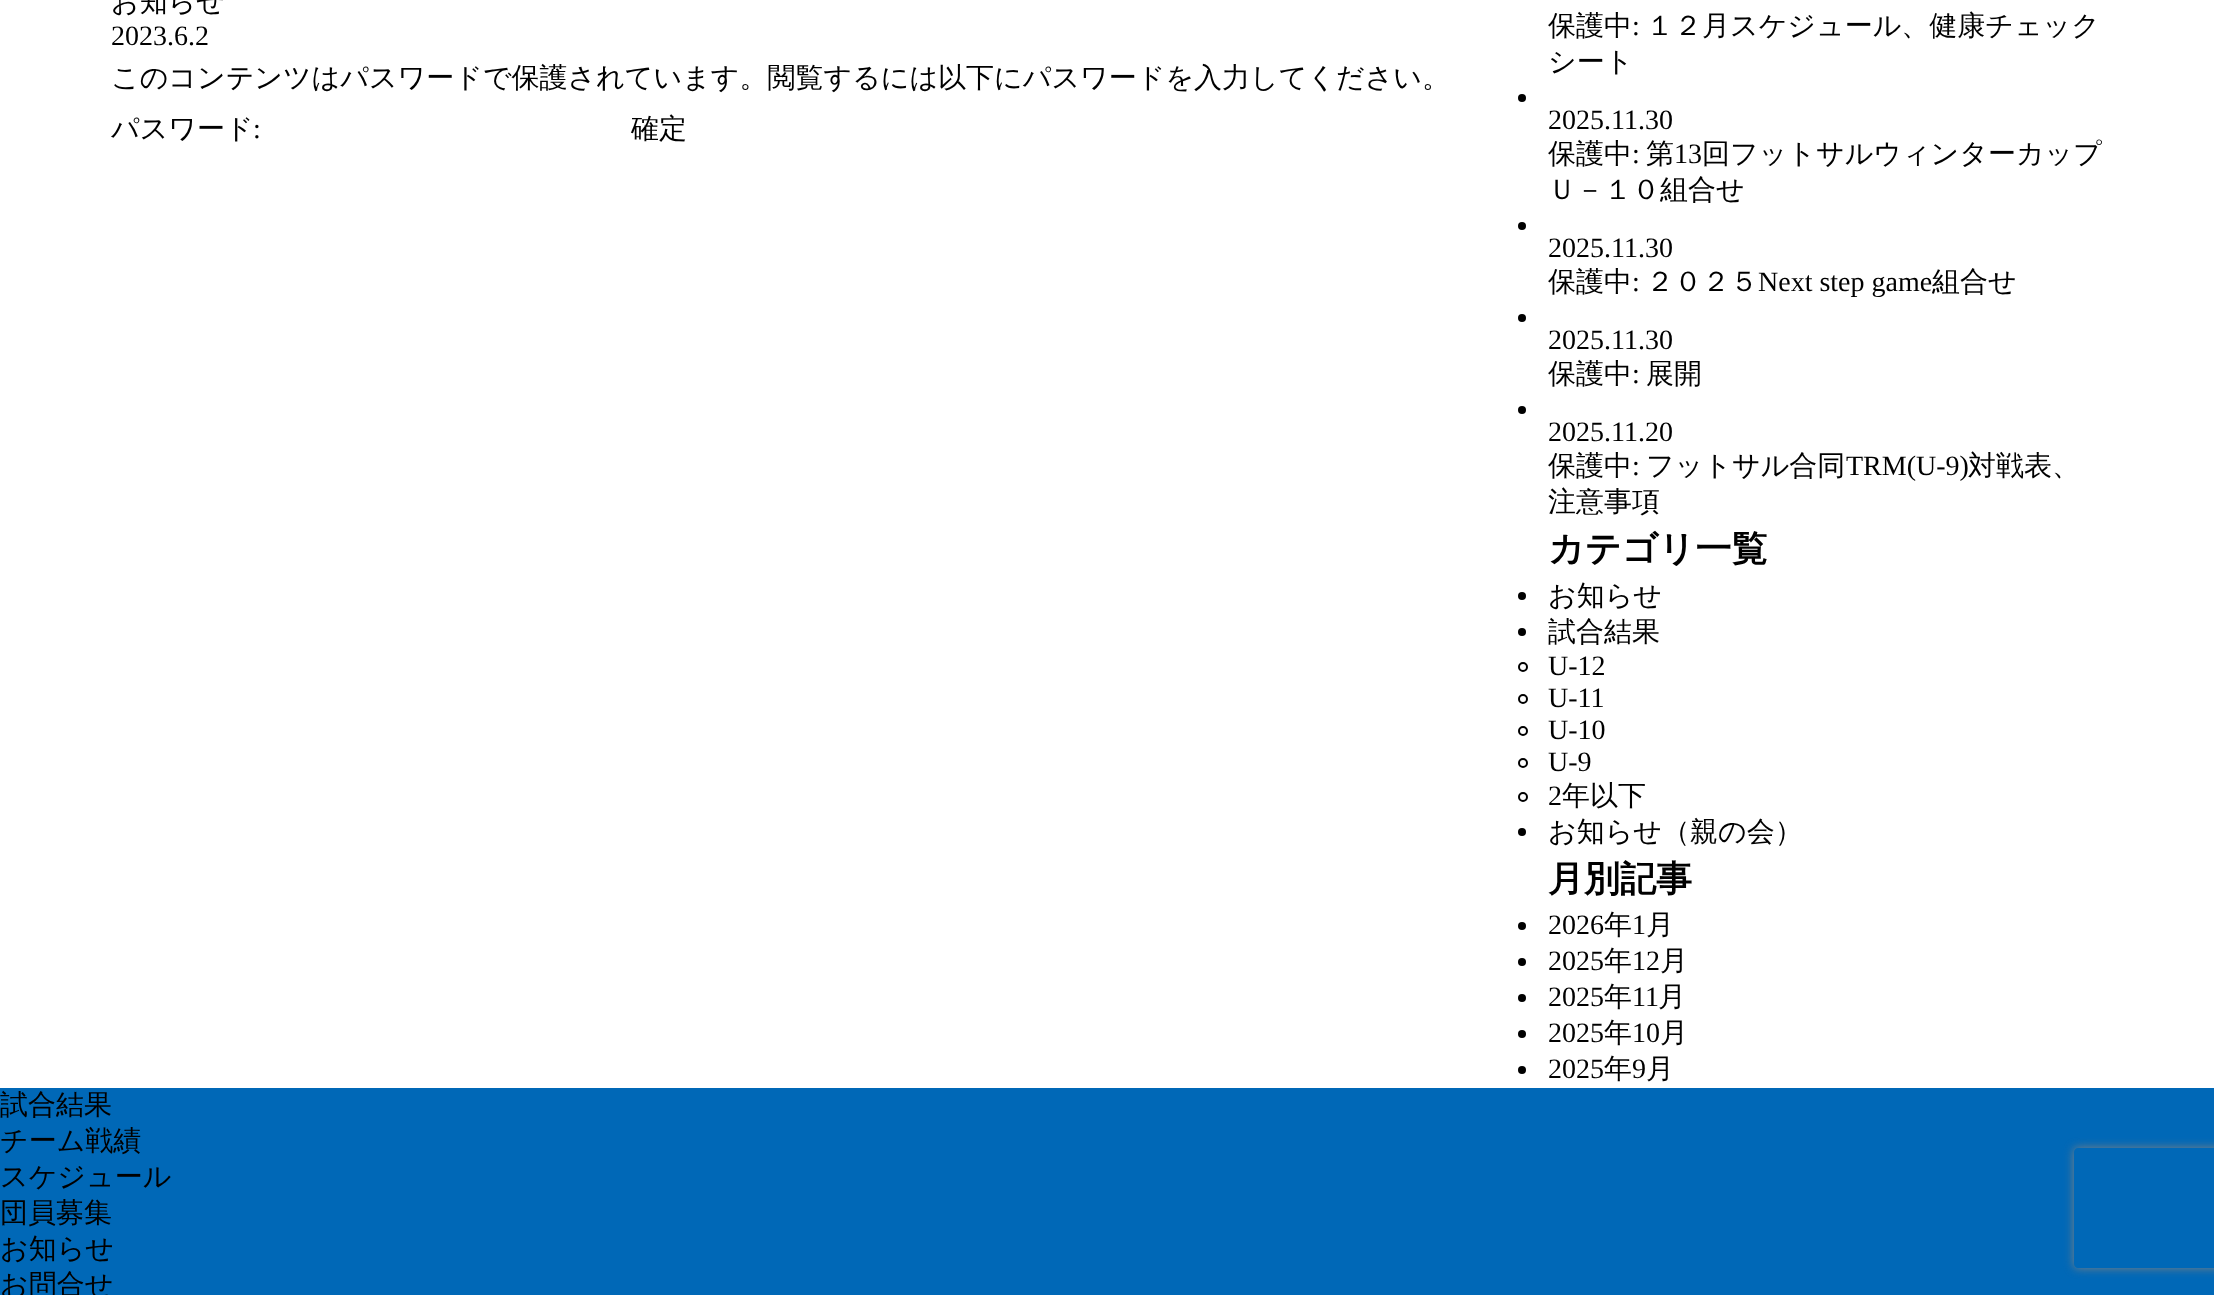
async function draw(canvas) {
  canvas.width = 2214;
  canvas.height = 1295;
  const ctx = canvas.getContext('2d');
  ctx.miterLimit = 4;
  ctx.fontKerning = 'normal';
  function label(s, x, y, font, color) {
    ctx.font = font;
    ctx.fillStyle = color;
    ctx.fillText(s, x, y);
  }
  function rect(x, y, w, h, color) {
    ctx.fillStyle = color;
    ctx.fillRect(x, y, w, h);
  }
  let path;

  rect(0, 0, 2214, 1295, '#fff');
  label('お知らせ', 111, 11, '500 28px WenQuanYi Zen Hei', '#000');
  label('2023.6.2', 111, 45, '28px Liberation Serif', '#000');
  label('このコンテンツはパスワードで保護されています。閲覧するには以下にパスワードを入力してください。', 111, 87, '500 28px WenQuanYi Zen Hei', '#000');
  label('パスワード', 111, 138, '500 28px WenQuanYi Zen Hei', '#000');
  label(':', 253, 138, '28px Liberation Serif', '#000');
  label('確定', 631, 138, '500 28px WenQuanYi Zen Hei', '#000');
  label('保護中', 1548, 35, '500 28px WenQuanYi Zen Hei', '#000');
  label(':', 1632, 35, '28px Liberation Serif', '#000');
  label('１２月スケジュール、健康チェック', 1646, 35, '500 28px WenQuanYi Zen Hei', '#000');
  label('シート', 1548, 71, '500 28px WenQuanYi Zen Hei', '#000');
  ctx.beginPath();
  ctx.arc(1522, 98, 4, 0, 2 * Math.PI);
  ctx.fill();
  label('2025.11.30', 1548, 129, '28px Liberation Serif', '#000');
  label('保護中', 1548, 163, '500 28px WenQuanYi Zen Hei', '#000');
  label(':', 1632, 163, '28px Liberation Serif', '#000');
  label('第', 1646, 163, '500 28px WenQuanYi Zen Hei', '#000');
  label('13', 1674, 163, '28px Liberation Serif', '#000');
  label('回フットサルウィンターカップ', 1702, 163, '500 28px WenQuanYi Zen Hei', '#000');
  label('Ｕ－１０組合せ', 1548, 199, '500 28px WenQuanYi Zen Hei', '#000');
  ctx.beginPath();
  ctx.arc(1522, 226, 4, 0, 2 * Math.PI);
  ctx.fill();
  label('2025.11.30', 1548, 257, '28px Liberation Serif', '#000');
  label('保護中', 1548, 291, '500 28px WenQuanYi Zen Hei', '#000');
  label(':', 1632, 291, '28px Liberation Serif', '#000');
  label('２０２５', 1646, 291, '500 28px WenQuanYi Zen Hei', '#000');
  label('Next step game', 1758, 291, '28px Liberation Serif', '#000');
  label('組合せ', 1932, 291, '500 28px WenQuanYi Zen Hei', '#000');
  ctx.beginPath();
  ctx.arc(1522, 318, 4, 0, 2 * Math.PI);
  ctx.fill();
  label('2025.11.30', 1548, 349, '28px Liberation Serif', '#000');
  label('保護中', 1548, 383, '500 28px WenQuanYi Zen Hei', '#000');
  label(':', 1632, 383, '28px Liberation Serif', '#000');
  label('展開', 1646, 383, '500 28px WenQuanYi Zen Hei', '#000');
  ctx.beginPath();
  ctx.arc(1522, 410, 4, 0, 2 * Math.PI);
  ctx.fill();
  label('2025.11.20', 1548, 441, '28px Liberation Serif', '#000');
  label('保護中', 1548, 475, '500 28px WenQuanYi Zen Hei', '#000');
  label(':', 1632, 475, '28px Liberation Serif', '#000');
  label('フットサル合同', 1646, 475, '500 28px WenQuanYi Zen Hei', '#000');
  label('TRM(U-9)', 1846, 475, '28px Liberation Serif', '#000');
  label('対戦表、', 1968, 475, '500 28px WenQuanYi Zen Hei', '#000');
  label('注意事項', 1548, 511, '500 28px WenQuanYi Zen Hei', '#000');
  label('カテゴリ一覧', 1548, 561, 'bold 36px WenQuanYi Zen Hei', '#000');
  ctx.beginPath();
  ctx.arc(1522, 596, 4, 0, 2 * Math.PI);
  ctx.fill();
  label('お知らせ', 1548, 605, '500 28px WenQuanYi Zen Hei', '#000');
  ctx.beginPath();
  ctx.arc(1522, 632, 4, 0, 2 * Math.PI);
  ctx.fill();
  label('試合結果', 1548, 641, '500 28px WenQuanYi Zen Hei', '#000');
  ctx.beginPath();
  ctx.arc(1523, 667, 4, 0, 2 * Math.PI);
  ctx.strokeStyle = '#000';
  ctx.lineWidth = 2;
  ctx.stroke();
  label('U-12', 1548, 675, '28px Liberation Serif', '#000');
  ctx.beginPath();
  ctx.arc(1523, 699, 4, 0, 2 * Math.PI);
  ctx.stroke();
  label('U-11', 1548, 707, '28px Liberation Serif', '#000');
  ctx.beginPath();
  ctx.arc(1523, 731, 4, 0, 2 * Math.PI);
  ctx.stroke();
  label('U-10', 1548, 739, '28px Liberation Serif', '#000');
  ctx.beginPath();
  ctx.arc(1523, 763, 4, 0, 2 * Math.PI);
  ctx.stroke();
  label('U-9', 1548, 771, '28px Liberation Serif', '#000');
  ctx.beginPath();
  ctx.arc(1523, 797, 4, 0, 2 * Math.PI);
  ctx.stroke();
  label('2', 1548, 805, '28px Liberation Serif', '#000');
  label('年以下', 1562, 805, '500 28px WenQuanYi Zen Hei', '#000');
  ctx.beginPath();
  ctx.arc(1522, 832, 4, 0, 2 * Math.PI);
  ctx.fill();
  label('お知らせ（親の会）', 1548, 841, '500 28px WenQuanYi Zen Hei', '#000');
  label('月別記事', 1548, 891, 'bold 36px WenQuanYi Zen Hei', '#000');
  ctx.beginPath();
  ctx.arc(1522, 926, 4, 0, 2 * Math.PI);
  ctx.fill();
  label('2026', 1548, 934, '28px Liberation Serif', '#000');
  label('年', 1604, 934, '500 28px WenQuanYi Zen Hei', '#000');
  label('1', 1632, 934, '28px Liberation Serif', '#000');
  label('月', 1646, 934, '500 28px WenQuanYi Zen Hei', '#000');
  ctx.beginPath();
  ctx.arc(1522, 962, 4, 0, 2 * Math.PI);
  ctx.fill();
  label('2025', 1548, 970, '28px Liberation Serif', '#000');
  label('年', 1604, 970, '500 28px WenQuanYi Zen Hei', '#000');
  label('12', 1632, 970, '28px Liberation Serif', '#000');
  label('月', 1660, 970, '500 28px WenQuanYi Zen Hei', '#000');
  ctx.beginPath();
  ctx.arc(1522, 998, 4, 0, 2 * Math.PI);
  ctx.fill();
  label('2025', 1548, 1006, '28px Liberation Serif', '#000');
  label('年', 1604, 1006, '500 28px WenQuanYi Zen Hei', '#000');
  label('11', 1632, 1006, '28px Liberation Serif', '#000');
  label('月', 1658, 1006, '500 28px WenQuanYi Zen Hei', '#000');
  ctx.beginPath();
  ctx.arc(1522, 1034, 4, 0, 2 * Math.PI);
  ctx.fill();
  label('2025', 1548, 1042, '28px Liberation Serif', '#000');
  label('年', 1604, 1042, '500 28px WenQuanYi Zen Hei', '#000');
  label('10', 1632, 1042, '28px Liberation Serif', '#000');
  label('月', 1660, 1042, '500 28px WenQuanYi Zen Hei', '#000');
  ctx.beginPath();
  ctx.arc(1522, 1070, 4, 0, 2 * Math.PI);
  ctx.fill();
  label('2025', 1548, 1078, '28px Liberation Serif', '#000');
  label('年', 1604, 1078, '500 28px WenQuanYi Zen Hei', '#000');
  label('9', 1632, 1078, '28px Liberation Serif', '#000');
  label('月', 1646, 1078, '500 28px WenQuanYi Zen Hei', '#000');
  rect(0, 1088, 2214, 207, '#0068b7');
  label('試合結果', 0, 1114, '500 28px WenQuanYi Zen Hei', '#000');
  label('チーム戦績', 0, 1150, '500 28px WenQuanYi Zen Hei', '#000');
  label('スケジュール', 0, 1186, '500 28px WenQuanYi Zen Hei', '#000');
  label('団員募集', 0, 1222, '500 28px WenQuanYi Zen Hei', '#000');
  label('お知らせ', 0, 1258, '500 28px WenQuanYi Zen Hei', '#000');
  label('お問合せ', 0, 1294, '500 28px WenQuanYi Zen Hei', '#000');
  ctx.save();
  path = new Path2D('M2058 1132H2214V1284H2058ZM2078 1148H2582C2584 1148 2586 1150 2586 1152V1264C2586 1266 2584 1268 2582 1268H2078C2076 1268 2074 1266 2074 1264V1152C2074 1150 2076 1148 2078 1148Z');
  ctx.clip(path, 'evenodd');
  ctx.fillStyle = '#808080';
  ctx.filter = 'blur(5px)';
  ctx.beginPath();
  ctx.roundRect(2074, 1148, 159, 120, 4);
  ctx.fill();
  ctx.filter = 'none';
  ctx.restore();
}

draw(document.querySelector('canvas'));
